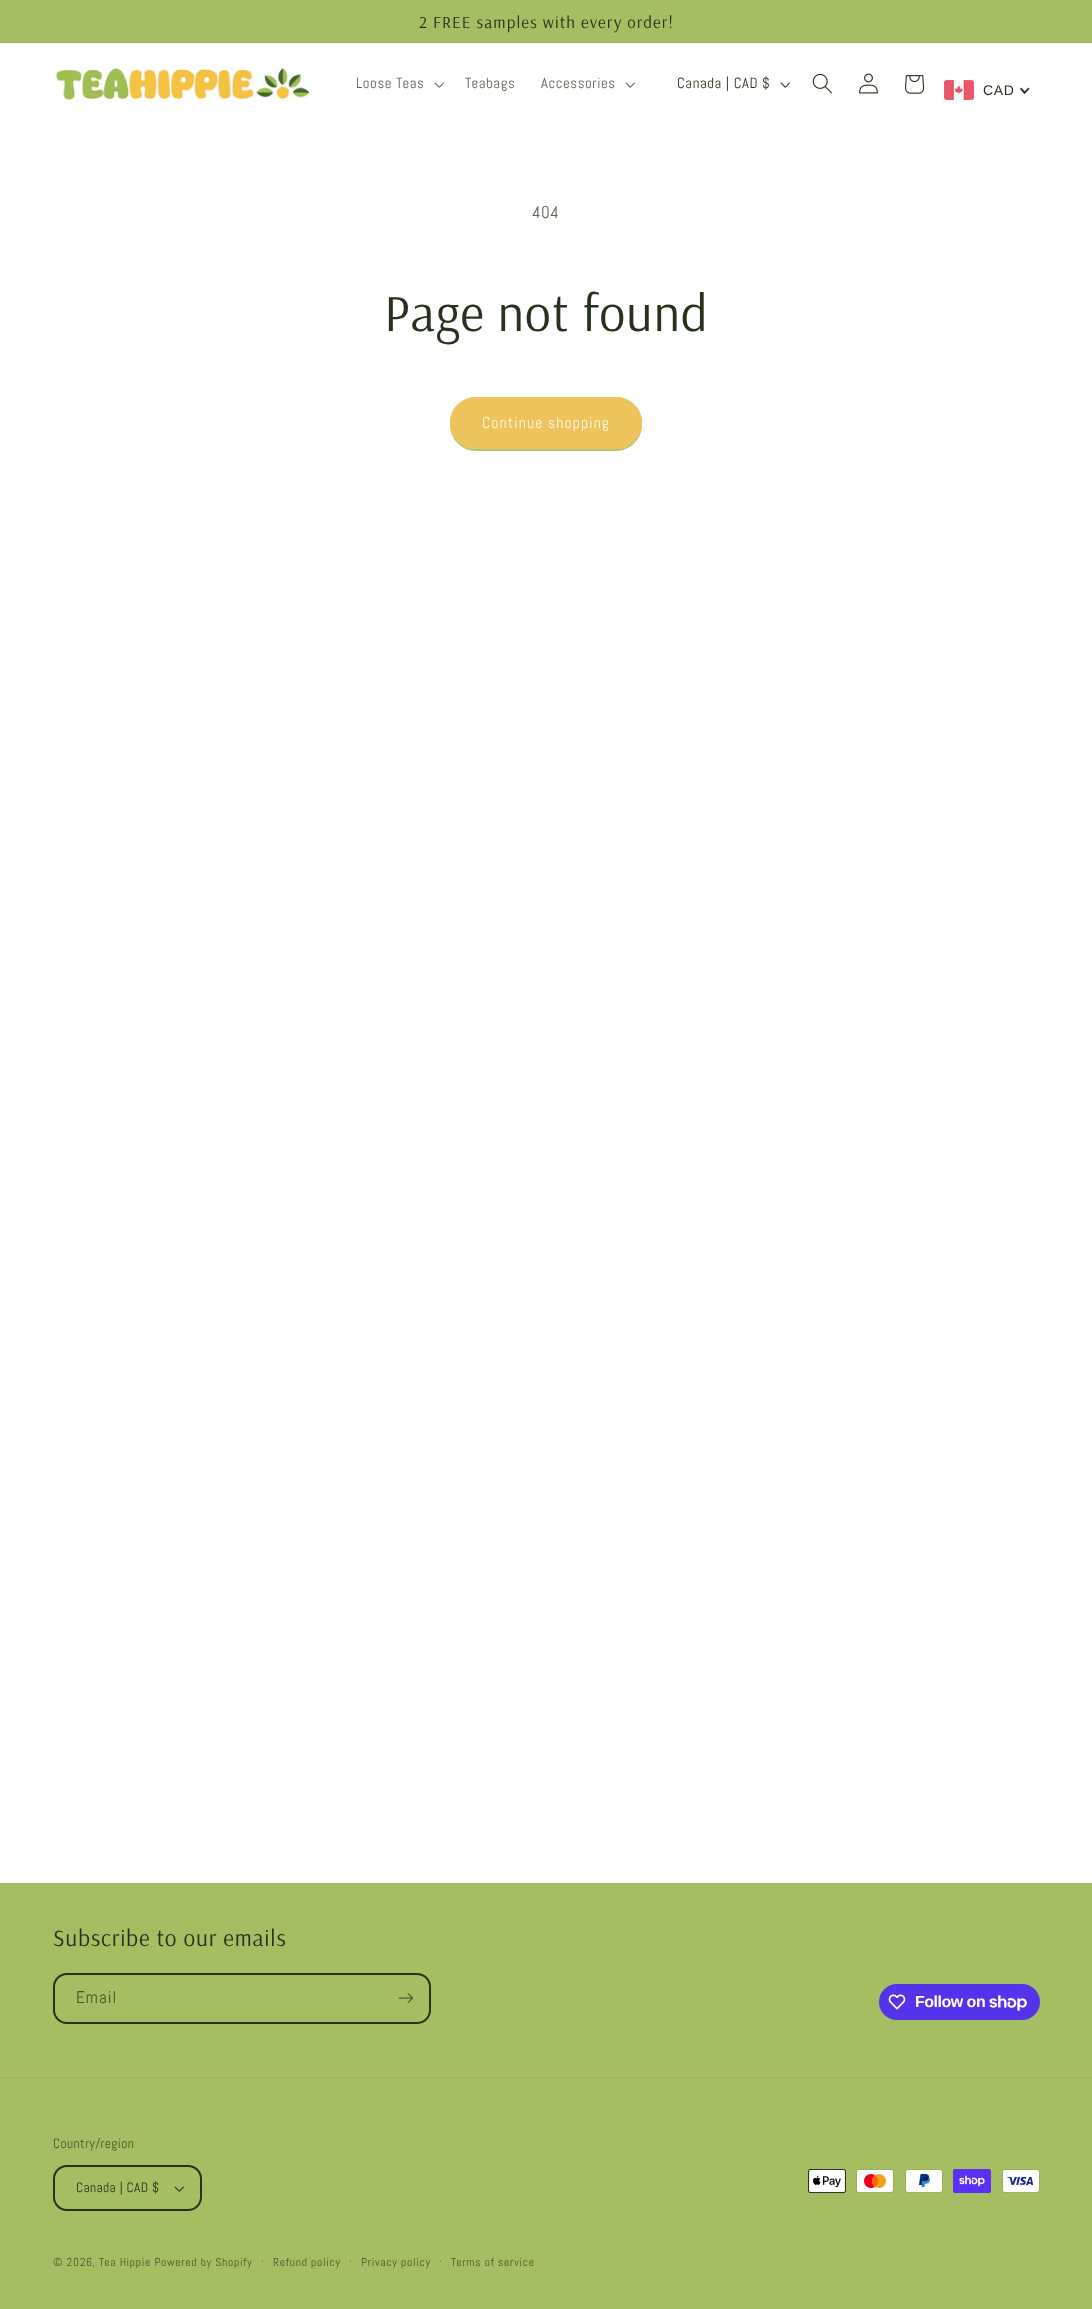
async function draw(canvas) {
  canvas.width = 1092;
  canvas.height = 2309;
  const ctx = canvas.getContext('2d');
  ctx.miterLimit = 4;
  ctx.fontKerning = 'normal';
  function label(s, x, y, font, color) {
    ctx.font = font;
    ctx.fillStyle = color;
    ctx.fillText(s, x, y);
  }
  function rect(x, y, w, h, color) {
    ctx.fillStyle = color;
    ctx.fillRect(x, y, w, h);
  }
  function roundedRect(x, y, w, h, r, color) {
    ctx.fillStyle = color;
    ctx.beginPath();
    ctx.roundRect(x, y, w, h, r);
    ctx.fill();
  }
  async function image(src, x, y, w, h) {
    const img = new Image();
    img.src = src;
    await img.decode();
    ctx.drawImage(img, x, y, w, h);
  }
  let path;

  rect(0, 0, 1092, 2309, '#fff');
  rect(0, 0, 1092, 42, '#a6be62');
  rect(0, 42, 1092, 1, '#9cb35c');
  ctx.letterSpacing = '1.05px';
  label('2 FREE samples with every order!', 419, 28, '16.9px Arsenal', '#26321b');
  await image('assets/img1.png', 53, 63, 257, 42);
  ctx.letterSpacing = '0.6px';
  label('Loose Teas', 356, 88, '14.75px Abel', '#5c6554');
  await image('assets/img2.png', 434, 82, 10, 6);
  label('Teabags', 465, 88, '14.75px Abel', '#5c6554');
  label('Accessories', 541, 88, '14.75px Abel', '#5c6554');
  await image('assets/img2.png', 625, 82, 10, 6);
  label('Canada | CAD $', 677, 88, '14.75px Abel', '#26321b');
  await image('assets/img3.png', 780, 82, 10, 6);
  await image('assets/img4.png', 812, 73, 20, 21);
  await image('assets/img5.png', 859, 73, 19, 21);
  await image('assets/img6.png', 905, 75, 20, 19);
  await image('assets/img7.png', 944, 80, 30, 20);
  label('CAD', 983, 95, '14px Liberation Sans', '#26321b');
  path = new Path2D('M1028.5 87.5L1029.5 89L1024.5 94L1023.5 92.5Z');
  ctx.fill(path);
  path = new Path2D('M1021 87.5L1026 92.5L1024.5 94L1020 89Z');
  ctx.fill(path);
  label('404', 532, 218, '17px Abel', '#5c6554');
  ctx.letterSpacing = '0.75px';
  label('Page not found', 384, 331, '52px Arsenal', '#26321b');
  ctx.fillStyle = '#afc572';
  path = new Path2D('M450 424V425C450 439 462 451 476 451H616C630 451 642 439 642 425V424C641 438 630 449 616 449H476C462 449 451 438 450 424Z');
  ctx.fill(path);
  roundedRect(450, 397, 192, 52, 26, '#edc35b');
  ctx.beginPath();
  ctx.roundRect(451, 398, 190, 50, 25);
  ctx.strokeStyle = '#edc35b';
  ctx.lineWidth = 2;
  ctx.stroke();
  ctx.letterSpacing = '1.05px';
  label('Continue shopping', 482, 428, '15.75px Abel', '#fff8e7');
  rect(0, 1883, 1092, 426, '#a6be62');
  ctx.letterSpacing = '0.75px';
  label('Subscribe to our emails', 53, 1946, '23.4px Arsenal', '#26321b');
  ctx.beginPath();
  ctx.roundRect(54, 1974, 376, 49, 13);
  ctx.strokeStyle = '#26321b';
  ctx.stroke();
  ctx.letterSpacing = '1.05px';
  label('Email', 76, 2003, '17px Abel', '#46552d');
  await image('assets/img8.png', 398, 1993, 15, 11);
  roundedRect(879, 1984, 161, 36, 18, '#5433eb');
  await image('assets/img9.png', 888, 1994, 18, 16);
  ctx.letterSpacing = '-0.5px';
  label('Follow on', 915, 2007, 'bold 16px Liberation Sans', '#fff');
  await image('assets/img10.png', 989, 1995, 38, 16);
  rect(0, 2077, 1092, 1, '#9cb35c');
  ctx.letterSpacing = '0.4px';
  label('Country/region', 53, 2148, '13.5px Abel', '#46552d');
  await image('assets/img11.png', 174, 2186, 10, 6);
  ctx.beginPath();
  ctx.roundRect(54, 2166, 147, 44, 13);
  ctx.stroke();
  label('Canada | CAD $', 76, 2192, '13.5px Abel', '#26321b');
  await image('assets/img12.png', 808, 2169, 38, 24);
  await image('assets/img13.png', 856, 2169, 38, 24);
  await image('assets/img14.png', 905, 2169, 38, 24);
  await image('assets/img15.png', 953, 2169, 38, 24);
  await image('assets/img16.png', 1002, 2169, 38, 24);
  ctx.letterSpacing = '0.75px';
  label('© 2026, Tea Hippie Powered by Shopify', 53, 2266, '11.5px Abel', '#46552d');
  label('·', 261, 2266, '13px Abel', '#46552d');
  label('Refund policy', 273, 2266, '11.5px Abel', '#46552d');
  label('·', 349, 2266, '13px Abel', '#46552d');
  label('Privacy policy', 361, 2266, '11.5px Abel', '#46552d');
  label('·', 439, 2266, '13px Abel', '#46552d');
  label('Terms of service', 451, 2266, '11.5px Abel', '#46552d');
}

draw(document.querySelector('canvas'));
